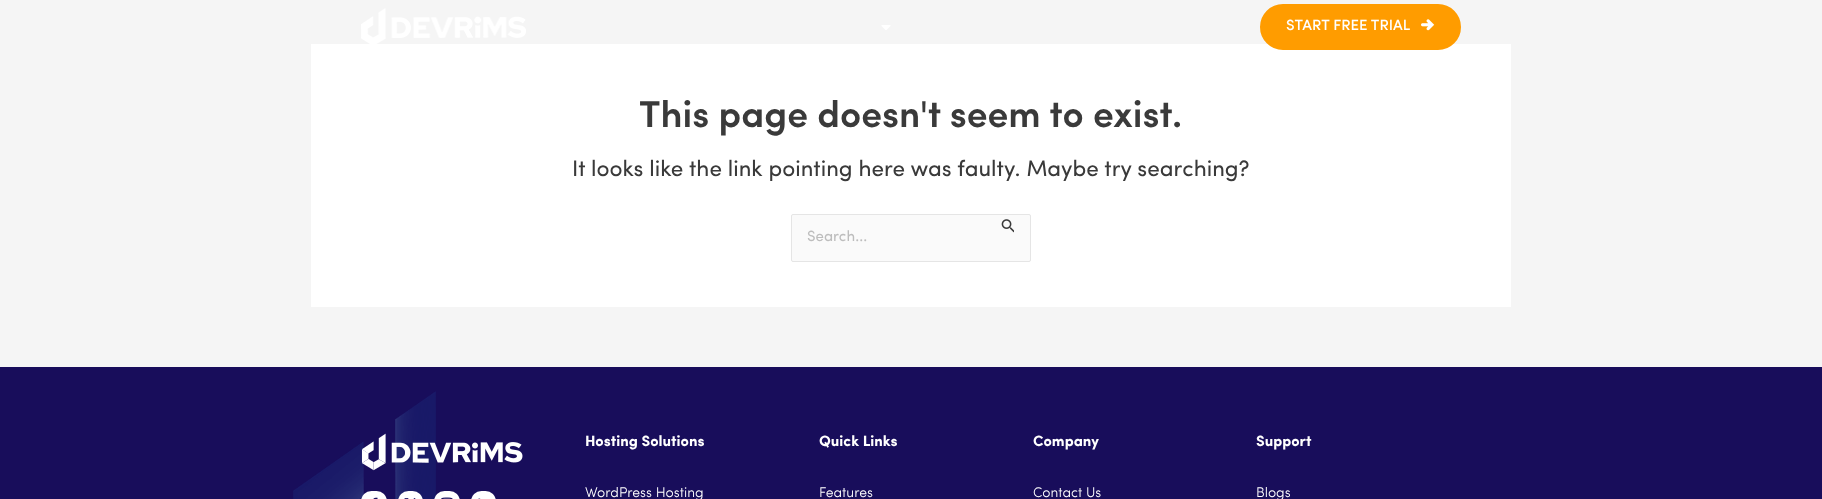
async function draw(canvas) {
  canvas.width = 1822;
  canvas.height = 499;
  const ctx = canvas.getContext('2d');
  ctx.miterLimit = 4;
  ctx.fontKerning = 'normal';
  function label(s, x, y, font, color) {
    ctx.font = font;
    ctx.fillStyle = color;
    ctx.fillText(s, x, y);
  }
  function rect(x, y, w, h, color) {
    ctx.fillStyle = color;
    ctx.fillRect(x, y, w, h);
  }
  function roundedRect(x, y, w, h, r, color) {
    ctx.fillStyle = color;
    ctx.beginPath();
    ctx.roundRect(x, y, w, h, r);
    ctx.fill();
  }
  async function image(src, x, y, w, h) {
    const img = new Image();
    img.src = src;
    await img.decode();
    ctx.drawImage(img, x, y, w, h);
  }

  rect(0, 0, 1822, 499, '#f5f5f5');
  await image('assets/img1.png', 361, 8, 165, 36);
  await image('assets/img2.png', 881, 25, 10, 5);
  rect(311, 44, 1200, 263, '#fff');
  ctx.fillStyle = '#ff9c00';
  ctx.beginPath();
  ctx.roundRect(1261, 5, 199, 44, 22);
  ctx.fill();
  ctx.strokeStyle = '#ff9c00';
  ctx.lineWidth = 2;
  ctx.stroke();
  label('START FREE TRIAL', 1286, 30, '500 15px Sofia', '#fff');
  await image('assets/img3.png', 1421, 19, 14, 12);
  label('This page doesn\'t seem to exist.', 639, 127, '600 37.5px Sofia', '#3a3a3a');
  label('It looks like the link pointing here was faulty. Maybe try searching?', 572, 176, '22.5px Sofia', '#3a3a3a');
  ctx.fillStyle = '#fafafa';
  ctx.beginPath();
  ctx.roundRect(791.5, 214.5, 239, 47, 1.5);
  ctx.fill();
  ctx.strokeStyle = '#e5e5e5';
  ctx.lineWidth = 1;
  ctx.stroke();
  await image('assets/img4.png', 1001, 219, 13, 14);
  label('Search...', 807, 241, '15px Sofia', '#bdbdbd');
  rect(0, 367, 1822, 132, '#180d5b');
  await image('assets/img5.png', 293, 391, 143, 108);
  await image('assets/img6.png', 361, 433, 162, 38);
  roundedRect(361, 491, 26, 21, 13, '#fff');
  await image('assets/img7.png', 373, 497, 5, 2);
  roundedRect(398, 491, 25, 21, 12.5, '#fff');
  await image('assets/img8.png', 404, 498, 12, 1);
  roundedRect(434, 491, 26, 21, 13, '#fff');
  await image('assets/img9.png', 441, 497, 12, 2);
  roundedRect(471, 491, 25, 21, 12.5, '#fff');
  await image('assets/img10.png', 478, 498, 3, 1);
  label('Hosting Solutions', 585, 446, 'bold 15px Sofia', '#fff');
  label('WordPress Hosting', 585, 497, '300 14px Sofia', '#fff');
  label('Quick Links', 819, 446, 'bold 15px Sofia', '#fff');
  label('Features', 819, 497, '300 14px Sofia', '#fff');
  label('Company', 1033, 446, 'bold 15px Sofia', '#fff');
  label('Contact Us', 1033, 497, '300 14px Sofia', '#fff');
  label('Support', 1256, 446, 'bold 15px Sofia', '#fff');
  label('Blogs', 1256, 497, '300 14px Sofia', '#fff');
}

draw(document.querySelector('canvas'));
